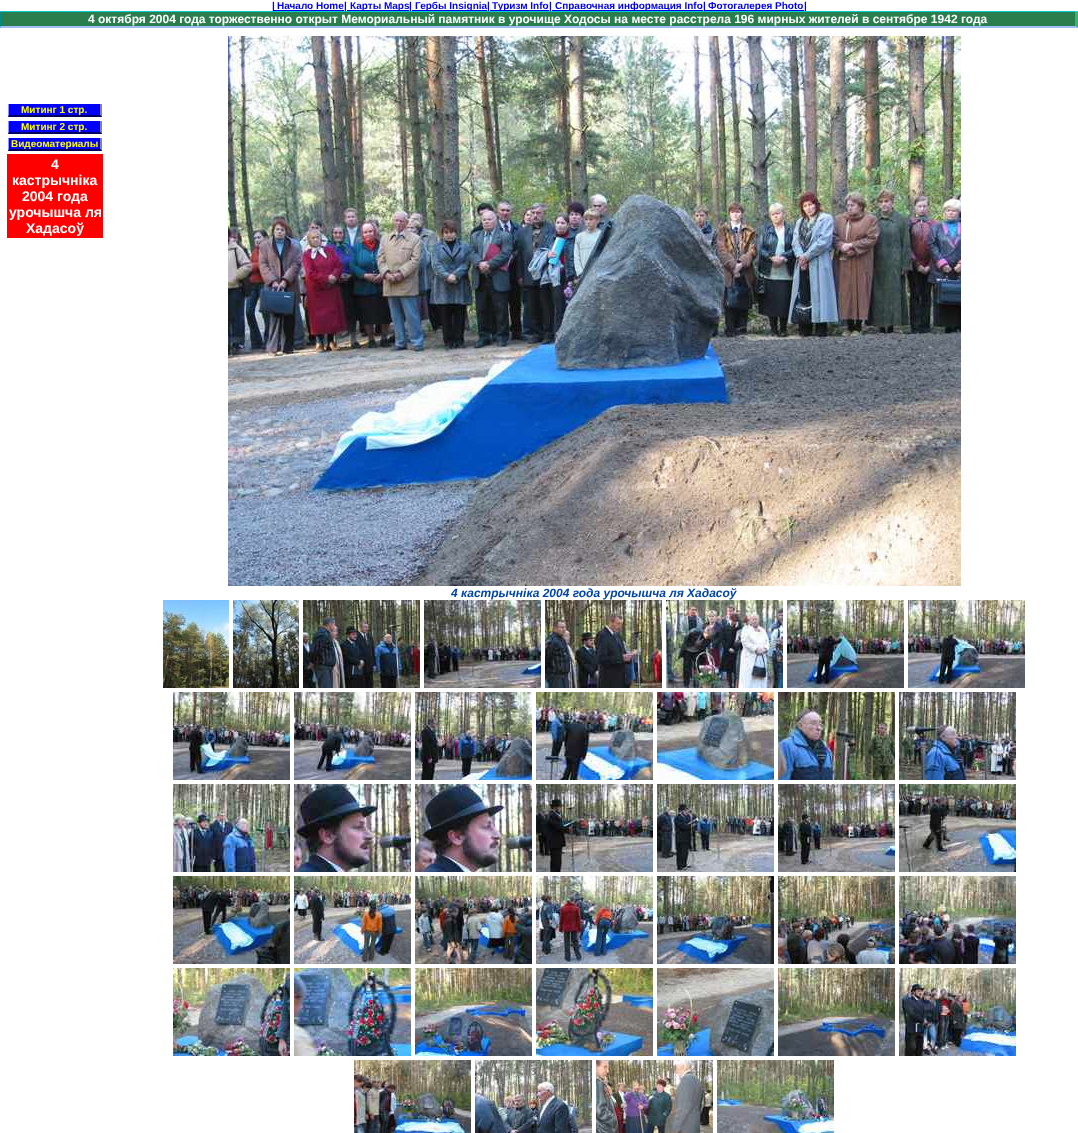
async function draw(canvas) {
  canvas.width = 1078;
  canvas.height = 1133;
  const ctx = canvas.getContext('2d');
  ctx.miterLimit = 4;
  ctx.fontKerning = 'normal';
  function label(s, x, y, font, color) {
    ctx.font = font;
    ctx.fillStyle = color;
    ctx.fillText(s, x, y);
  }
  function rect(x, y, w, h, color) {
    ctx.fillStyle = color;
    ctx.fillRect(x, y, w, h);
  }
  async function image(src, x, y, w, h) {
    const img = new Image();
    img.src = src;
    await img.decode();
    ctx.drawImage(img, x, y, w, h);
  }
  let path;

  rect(0, 0, 1078, 1133, '#fff');
  ctx.fillStyle = '#00ced1';
  path = new Path2D('M0 11H1078L1075 12H1Z');
  ctx.fill(path);
  label('|', 272, 9, 'bold 10px Liberation Sans', '#00f');
  label('Начало Home', 277, 9, 'bold 10px Liberation Sans', '#00e');
  rect(274, 10, 70, 1, '#00e');
  label('|', 344, 9, 'bold 10px Liberation Sans', '#00f');
  rect(347, 10, 62, 1, '#00e');
  label('Карты Maps', 350, 9, 'bold 10px Liberation Sans', '#00e');
  label('|', 409, 9, 'bold 10px Liberation Sans', '#00f');
  rect(412, 10, 75, 1, '#00e');
  label('Гербы Insignia', 415, 9, 'bold 10px Liberation Sans', '#00e');
  label('|', 487, 9, 'bold 10px Liberation Sans', '#00f');
  rect(490, 10, 59, 1, '#00e');
  label('Туризм Info', 492, 9, 'bold 10px Liberation Sans', '#00e');
  label('|', 549, 9, 'bold 10px Liberation Sans', '#00f');
  rect(552, 10, 151, 1, '#00e');
  label('Справочная информация Info', 555, 9, 'bold 10px Liberation Sans', '#00e');
  label('|', 703, 9, 'bold 10px Liberation Sans', '#00f');
  rect(705, 10, 99, 1, '#00e');
  label('Фотогалерея Photo', 708, 9, 'bold 10px Liberation Sans', '#00e');
  label('|', 804, 9, 'bold 10px Liberation Sans', '#00f');
  rect(1, 12, 1074, 14, '#2a7e4e');
  ctx.fillStyle = '#3cb371';
  path = new Path2D('M1078 11V28L1075 26V12Z');
  ctx.fill(path);
  ctx.fillStyle = '#9ebdf4';
  path = new Path2D('M1078 28H0L1 26H1075Z');
  ctx.fill(path);
  ctx.fillStyle = '#008b8b';
  path = new Path2D('M0 28V11L1 12V26Z');
  ctx.fill(path);
  label('4 октября 2004 года торжественно открыт Мемориальный памятник в урочище Ходосы на месте расстрела 196 мирных жителей в сентябре 1942 года', 88, 23, 'bold 12px Liberation Sans', '#fff');
  rect(8, 104, 94, 13, '#00f');
  ctx.fillStyle = '#8181aa';
  path = new Path2D('M102 104V117L100 115V104Z');
  ctx.fill(path);
  ctx.fillStyle = '#00005d';
  path = new Path2D('M102 117H8L9 115H100Z');
  ctx.fill(path);
  ctx.fillStyle = '#9191ff';
  path = new Path2D('M8 117V104H9V115Z');
  ctx.fill(path);
  label('Митинг 1 стр.', 21, 113, 'bold 10px Liberation Sans', '#ff0');
  rect(8, 121, 94, 13, '#00f');
  ctx.fillStyle = '#8181aa';
  path = new Path2D('M102 121V134L100 132V121Z');
  ctx.fill(path);
  ctx.fillStyle = '#00005d';
  path = new Path2D('M102 134H8L9 132H100Z');
  ctx.fill(path);
  ctx.fillStyle = '#9191ff';
  path = new Path2D('M8 134V121H9V132Z');
  ctx.fill(path);
  label('Митинг 2 стр.', 21, 130, 'bold 10px Liberation Sans', '#ff0');
  rect(8, 138, 94, 13, '#00f');
  ctx.fillStyle = '#8181aa';
  path = new Path2D('M102 138V151L100 149V138Z');
  ctx.fill(path);
  ctx.fillStyle = '#00005d';
  path = new Path2D('M102 151H8L9 149H100Z');
  ctx.fill(path);
  ctx.fillStyle = '#9191ff';
  path = new Path2D('M8 151V138H9V149Z');
  ctx.fill(path);
  label('Видеоматериалы', 11, 147, 'bold 10px Liberation Sans', '#ff0');
  rect(7, 154, 96, 84, '#f00');
  label('4', 51, 169, 'bold 14px Liberation Sans', '#fff');
  label('кастрычнiка', 12, 185, 'bold 14px Liberation Sans', '#fff');
  label('2004 года', 22, 201, 'bold 14px Liberation Sans', '#fff');
  label('урочышча ля', 9, 217, 'bold 14px Liberation Sans', '#fff');
  label('Хадасоў', 26, 233, 'bold 14px Liberation Sans', '#fff');
  await image('assets/img1.png', 228, 36, 733, 550);
  label('4 кастрычнiка 2004 года урочышча ля Хадасоў', 451, 597, 'italic bold 12px Liberation Sans', '#0044a8');
  await image('assets/img2.png', 163, 600, 66, 88);
  await image('assets/img3.png', 233, 600, 66, 88);
  await image('assets/img4.png', 303, 600, 117, 88);
  await image('assets/img5.png', 424, 600, 117, 88);
  await image('assets/img6.png', 545, 600, 117, 88);
  await image('assets/img7.png', 666, 600, 117, 88);
  await image('assets/img8.png', 787, 600, 117, 88);
  await image('assets/img9.png', 908, 600, 117, 88);
  await image('assets/img10.png', 173, 692, 117, 88);
  await image('assets/img11.png', 294, 692, 117, 88);
  await image('assets/img12.png', 415, 692, 117, 88);
  await image('assets/img13.png', 536, 692, 117, 88);
  await image('assets/img14.png', 657, 692, 117, 88);
  await image('assets/img15.png', 778, 692, 117, 88);
  await image('assets/img16.png', 899, 692, 117, 88);
  await image('assets/img17.png', 173, 784, 117, 88);
  await image('assets/img18.png', 294, 784, 117, 88);
  await image('assets/img19.png', 415, 784, 117, 88);
  await image('assets/img20.png', 536, 784, 117, 88);
  await image('assets/img21.png', 657, 784, 117, 88);
  await image('assets/img22.png', 778, 784, 117, 88);
  await image('assets/img23.png', 899, 784, 117, 88);
  await image('assets/img24.png', 173, 876, 117, 88);
  await image('assets/img25.png', 294, 876, 117, 88);
  await image('assets/img26.png', 415, 876, 117, 88);
  await image('assets/img27.png', 536, 876, 117, 88);
  await image('assets/img28.png', 657, 876, 117, 88);
  await image('assets/img29.png', 778, 876, 117, 88);
  await image('assets/img30.png', 899, 876, 117, 88);
  await image('assets/img31.png', 173, 968, 117, 88);
  await image('assets/img32.png', 294, 968, 117, 88);
  await image('assets/img33.png', 415, 968, 117, 88);
  await image('assets/img34.png', 536, 968, 117, 88);
  await image('assets/img35.png', 657, 968, 117, 88);
  await image('assets/img36.png', 778, 968, 117, 88);
  await image('assets/img37.png', 899, 968, 117, 88);
  await image('assets/img38.png', 354, 1060, 117, 73);
  await image('assets/img39.png', 475, 1060, 117, 73);
  await image('assets/img40.png', 596, 1060, 117, 73);
  await image('assets/img41.png', 717, 1060, 117, 73);
}

draw(document.querySelector('canvas'));
